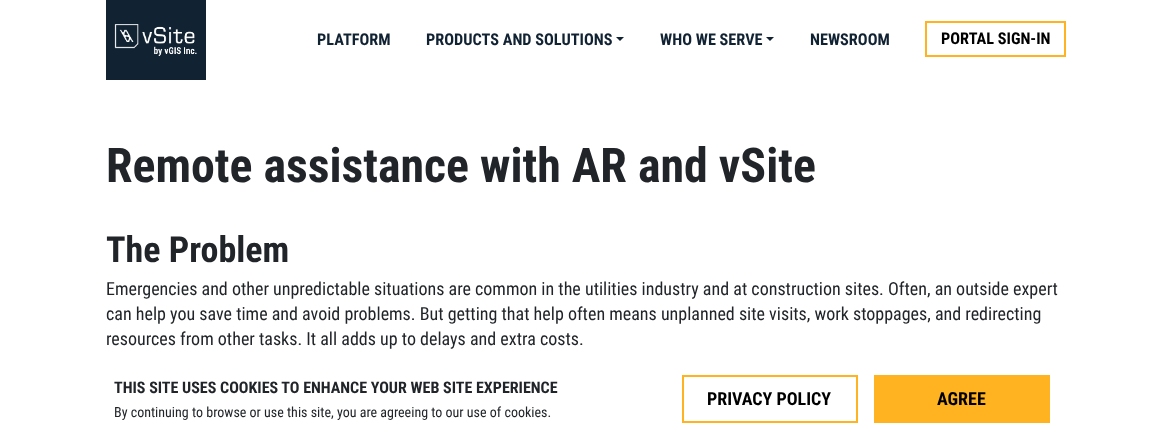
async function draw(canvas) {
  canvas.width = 1171;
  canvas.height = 443;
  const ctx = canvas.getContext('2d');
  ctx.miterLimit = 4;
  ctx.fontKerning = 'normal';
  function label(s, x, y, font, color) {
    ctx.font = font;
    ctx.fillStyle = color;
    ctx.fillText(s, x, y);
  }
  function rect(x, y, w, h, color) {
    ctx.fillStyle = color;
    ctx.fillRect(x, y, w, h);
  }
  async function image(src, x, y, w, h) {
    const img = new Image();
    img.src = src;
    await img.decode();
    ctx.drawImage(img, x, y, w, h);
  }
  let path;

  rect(0, 0, 1171, 443, '#fff');
  rect(106, 0, 100, 80, '#123');
  await image('assets/img1.png', 114, 24, 83, 32);
  label('PLATFORM', 317, 45, 'bold 16.25px Roboto Condensed', '#123');
  label('PRODUCTS AND SOLUTIONS', 426, 45, 'bold 16.25px Roboto Condensed', '#123');
  path = new Path2D('M616 37H624L620 41Z');
  ctx.fill(path);
  label('WHO WE SERVE', 660, 45, 'bold 16.25px Roboto Condensed', '#123');
  path = new Path2D('M766 37H774L770 41Z');
  ctx.fill(path);
  label('NEWSROOM', 810, 45, 'bold 16.25px Roboto Condensed', '#123');
  ctx.strokeStyle = '#ffb321';
  ctx.lineWidth = 2;
  ctx.strokeRect(926, 22, 139, 34);
  label('PORTAL SIGN-IN', 941, 44, 'bold 16.25px Roboto Condensed', '#000');
  label('Remote assistance with AR and vSite', 106, 182, 'bold 47.9px Roboto Condensed', '#212529');
  label('The Problem', 106, 262, 'bold 36px Roboto Condensed', '#212529');
  label('Emergencies and other unpredictable situations are common in the utilities industry and at construction sites. Often, an outside expert', 106, 295, '18px Roboto Condensed', '#212529');
  label('can help you save time and avoid problems. But getting that help often means unplanned site visits, work stoppages, and redirecting', 106, 320, '18px Roboto Condensed', '#212529');
  label('resources from other tasks. It all adds up to delays and extra costs.', 106, 345, '18px Roboto Condensed', '#212529');
  label('THIS SITE USES COOKIES TO ENHANCE YOUR WEB SITE EXPERIENCE', 114, 393, 'bold 16px Roboto Condensed', '#212529');
  label('By continuing to browse or use this site, you are agreeing to our use of cookies.', 114, 417, '14px Roboto Condensed', '#212529');
  ctx.strokeRect(683, 376, 174, 46);
  label('PRIVACY POLICY', 707, 405, 'bold 18px Roboto Condensed', '#000');
  rect(874, 375, 176, 48, '#ffb321');
  label('AGREE', 937, 405, 'bold 18px Roboto Condensed', '#000');
}

draw(document.querySelector('canvas'));
